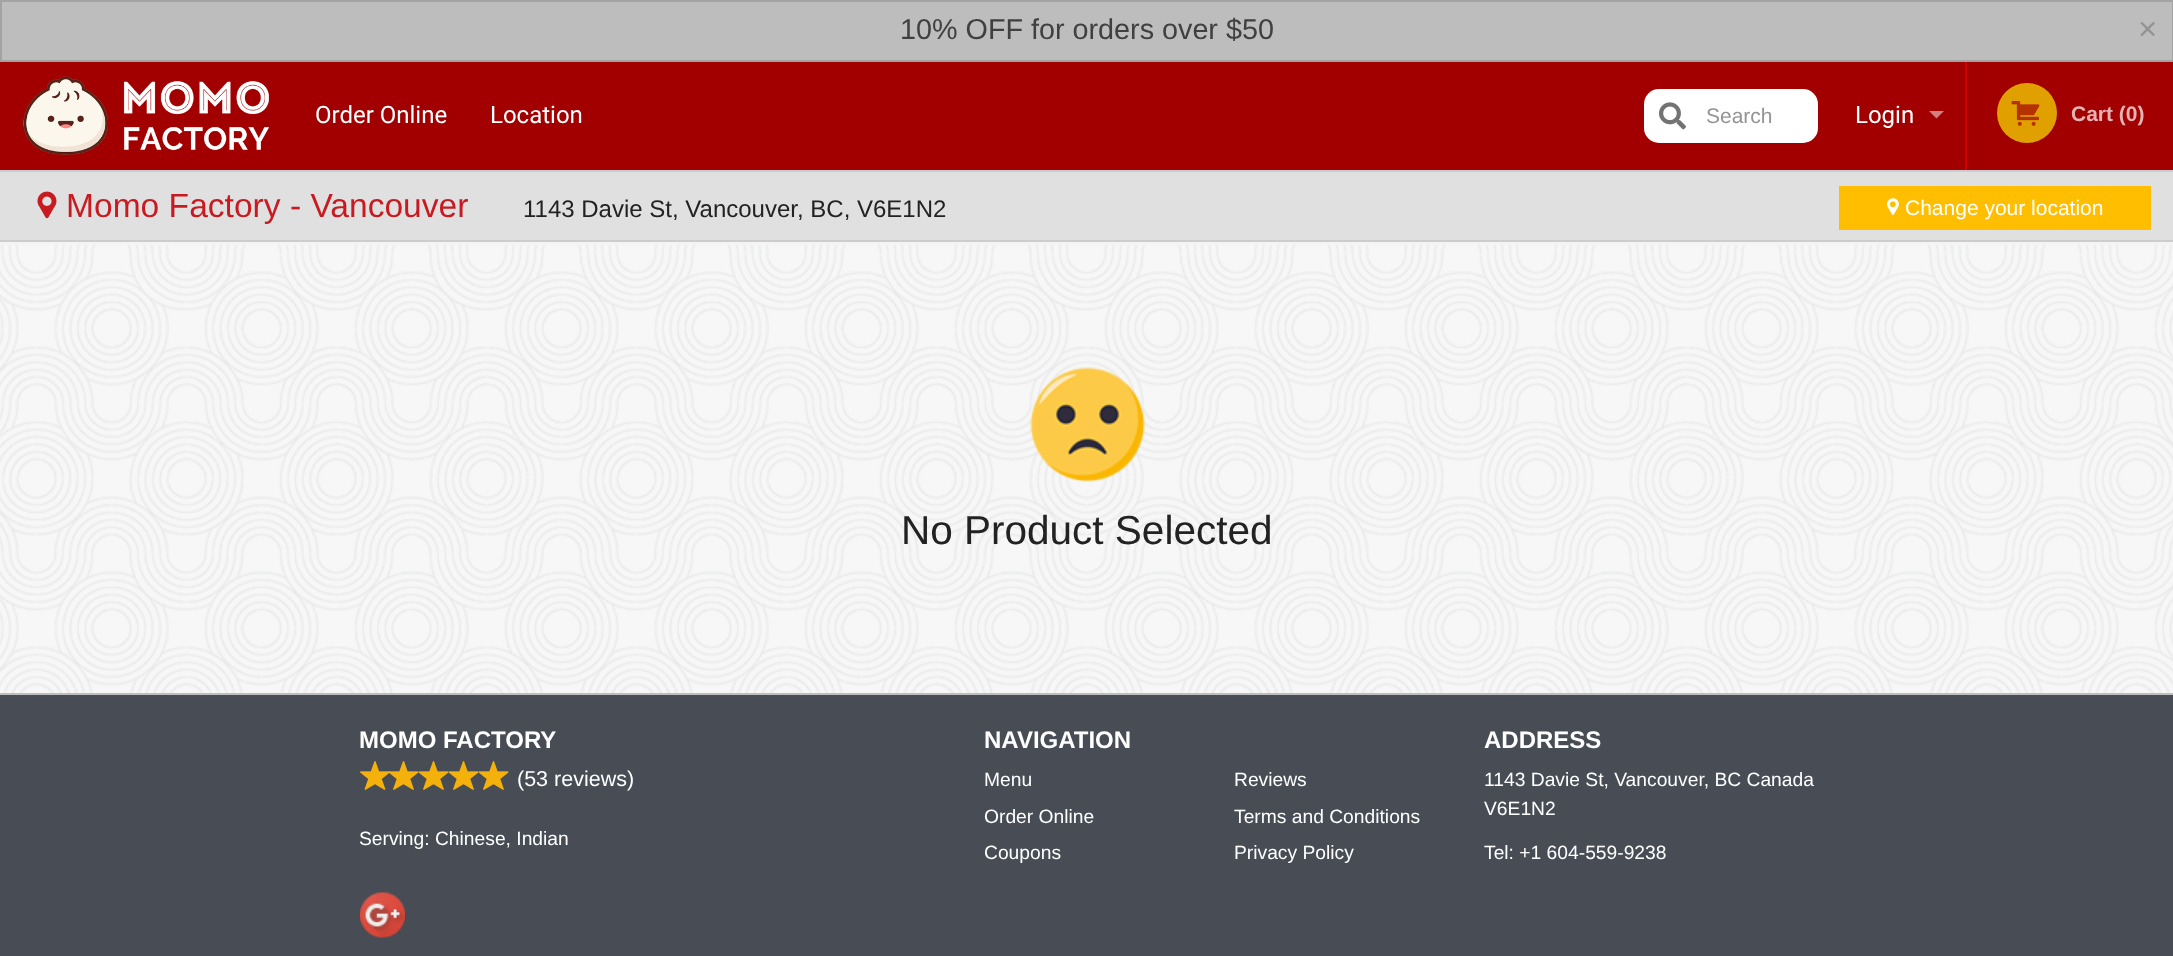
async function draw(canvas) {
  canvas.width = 2173;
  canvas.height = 956;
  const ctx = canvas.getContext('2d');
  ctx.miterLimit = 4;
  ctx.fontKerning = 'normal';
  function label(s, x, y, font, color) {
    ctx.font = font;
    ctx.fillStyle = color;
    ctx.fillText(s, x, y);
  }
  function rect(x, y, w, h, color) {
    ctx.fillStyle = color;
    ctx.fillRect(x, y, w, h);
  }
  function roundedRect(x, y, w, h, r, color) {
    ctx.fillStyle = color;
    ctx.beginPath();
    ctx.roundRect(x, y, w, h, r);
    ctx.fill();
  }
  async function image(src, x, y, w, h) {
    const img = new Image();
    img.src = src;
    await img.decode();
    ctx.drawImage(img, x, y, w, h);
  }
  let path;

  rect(0, 0, 2173, 956, '#fff');
  await image('assets/img1.png', 0, 245, 2173, 448);
  ctx.fillStyle = '#bdbdbd';
  ctx.beginPath();
  ctx.rect(1, 1, 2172, 60);
  ctx.fill();
  ctx.strokeStyle = '#a3a3a3';
  ctx.lineWidth = 2;
  ctx.stroke();
  label('10% OFF for orders over $50', 900, 39, '28.75px Liberation Sans', '#404040');
  label('×', 2138, 40, '33px Liberation Sans', '#949494');
  rect(0, 62, 2173, 108, '#a20000');
  rect(0, 242, 2173, 3, '#f5f4f5');
  await image('assets/img2.png', 23, 76, 246, 79);
  label('Order Online', 315, 123, '24px Roboto', '#fff');
  label('Location', 490, 123, '24px Roboto', '#fff');
  roundedRect(1644, 89, 174, 54, 15, '#fff');
  await image('assets/img3.png', 1659, 102, 27, 28);
  label('Search', 1706, 123, '21px Liberation Sans', '#949494');
  label('Login', 1855, 123, '24px Roboto', '#fff');
  ctx.fillStyle = '#d18080';
  path = new Path2D('M1929 111H1944L1936.5 118.5Z');
  ctx.fill(path);
  rect(1965, 62, 2, 108, '#cf0000');
  ctx.fillStyle = '#e0a100';
  ctx.beginPath();
  ctx.arc(2027, 113, 30, 0, 2 * Math.PI);
  ctx.fill();
  await image('assets/img4.png', 2011, 101, 29, 25);
  label('Cart (0)', 2071, 121, 'bold 21px Liberation Sans', '#e3b3b3');
  rect(0, 172, 2173, 68, '#e0e0e0');
  rect(0, 170, 2173, 2, '#ccc');
  rect(0, 240, 2173, 2, '#ccc');
  await image('assets/img5.png', 37, 191, 20, 28);
  label('Momo Factory - Vancouver', 66, 217, '33.6px Liberation Sans', '#c81a21');
  label('1143 Davie St, Vancouver, BC, V6E1N2', 523, 217, '24px Liberation Sans', '#222');
  rect(1839, 186, 312, 44, '#ffbf00');
  await image('assets/img6.png', 1887, 198, 12, 17);
  label('Change your location', 1905, 215, '21px Liberation Sans', '#fff');
  await image('assets/img7.png', 1030, 367, 115, 115);
  label('No Product Selected', 901, 544, '40.5px Liberation Sans', '#222');
  rect(0, 695, 2173, 261, '#474c55');
  rect(0, 693, 2173, 2, '#bdbdbd');
  label('MOMO FACTORY', 359, 748, 'bold 24px Liberation Sans', '#fff');
  await image('assets/img8.png', 360, 761, 30, 29);
  await image('assets/img9.png', 388, 761, 31, 29);
  await image('assets/img10.png', 418, 761, 31, 29);
  await image('assets/img10.png', 448, 761, 31, 29);
  await image('assets/img10.png', 478, 761, 31, 29);
  label('(53 reviews)', 517, 786, '21.5px Liberation Sans', '#fff');
  label('Serving: Chinese, Indian', 359, 845, '19.25px Liberation Sans', '#fff');
  await image('assets/img11.png', 360, 892, 45, 46);
  label('NAVIGATION', 984, 748, 'bold 24px Liberation Sans', '#fff');
  label('Menu', 984, 786, '19.25px Liberation Sans', '#fff');
  label('Order Online', 984, 823, '19.25px Liberation Sans', '#fff');
  label('Coupons', 984, 859, '19.25px Liberation Sans', '#fff');
  label('Reviews', 1234, 786, '19.25px Liberation Sans', '#fff');
  label('Terms and Conditions', 1234, 823, '19.25px Liberation Sans', '#fff');
  label('Privacy Policy', 1234, 859, '19.25px Liberation Sans', '#fff');
  label('ADDRESS', 1484, 748, 'bold 24px Liberation Sans', '#fff');
  label('1143 Davie St, Vancouver, BC Canada', 1484, 786, '19.25px Liberation Sans', '#fff');
  label('V6E1N2', 1484, 815, '19.25px Liberation Sans', '#fff');
  label('Tel: +1 604-559-9238', 1484, 859, '19.25px Liberation Sans', '#fff');
}

draw(document.querySelector('canvas'));
